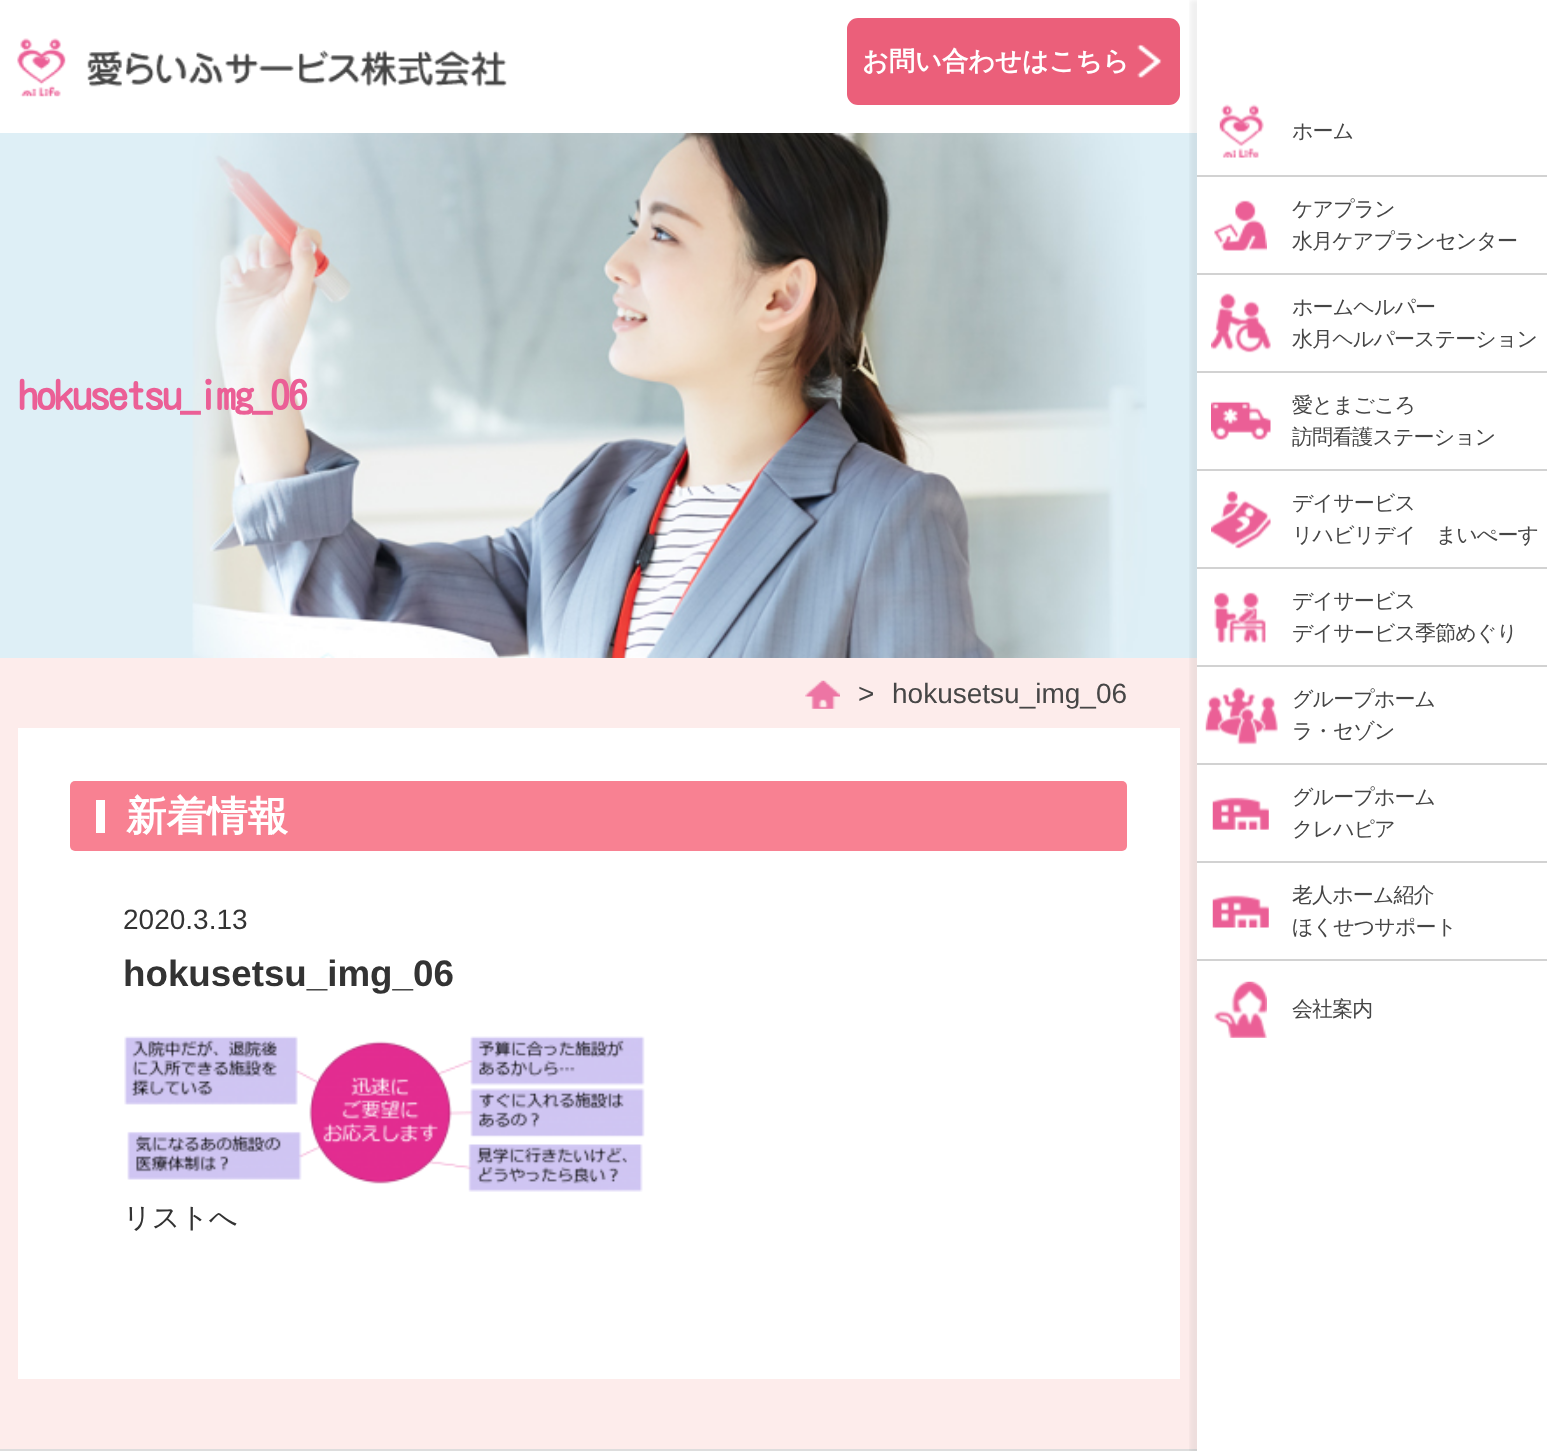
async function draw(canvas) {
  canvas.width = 1547;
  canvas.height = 1451;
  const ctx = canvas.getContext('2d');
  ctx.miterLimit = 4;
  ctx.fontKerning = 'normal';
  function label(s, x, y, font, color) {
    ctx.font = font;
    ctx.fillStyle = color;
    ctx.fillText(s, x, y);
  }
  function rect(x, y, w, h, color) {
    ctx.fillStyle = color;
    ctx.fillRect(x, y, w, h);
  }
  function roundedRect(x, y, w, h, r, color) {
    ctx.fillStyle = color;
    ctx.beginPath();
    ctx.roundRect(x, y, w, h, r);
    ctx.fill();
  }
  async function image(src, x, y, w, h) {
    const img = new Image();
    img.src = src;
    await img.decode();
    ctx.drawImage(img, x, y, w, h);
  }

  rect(0, 0, 1547, 1451, '#fff');
  rect(0, 133, 1197, 525, '#deeff6');
  await image('assets/img1.png', 192, 133, 955, 525);
  ctx.letterSpacing = '-1.75px';
  label('hokusetsu_img_06', 18, 410, 'bold 39.5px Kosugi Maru', '#eb5f96');
  await image('assets/img2.png', 17, 38, 490, 59);
  roundedRect(847, 18, 333, 87, 11, '#eb5f7a');
  ctx.letterSpacing = '0px';
  label('お問い合わせはこちら', 862, 70, 'bold 26.25px WenQuanYi Zen Hei', '#fff');
  await image('assets/img3.png', 1137, 44, 25, 34);
  rect(0, 658, 1197, 791, '#fdeceb');
  rect(0, 1449, 1197, 2, '#ddd');
  ctx.save();
  ctx.beginPath();
  ctx.rect(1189, 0, 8, 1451);
  ctx.clip();
  ctx.fillStyle = '#0000000f';
  ctx.filter = 'blur(2px)';
  ctx.beginPath();
  ctx.rect(1190, 0, 350, 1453);
  ctx.fill();
  ctx.filter = 'none';
  ctx.restore();
  rect(1197, 175, 350, 2, '#d2d2d2');
  await image('assets/img4.png', 1219, 104, 45, 54);
  ctx.letterSpacing = '-0.9px';
  label('ホーム', 1292, 138, '500 21px WenQuanYi Zen Hei', '#464646');
  rect(1197, 273, 350, 2, '#d2d2d2');
  await image('assets/img5.png', 1214, 200, 53, 51);
  label('ケアプラン', 1292, 216, '500 21px WenQuanYi Zen Hei', '#464646');
  label('水月ケアプランセンター', 1292, 248, '500 21px WenQuanYi Zen Hei', '#464646');
  rect(1197, 371, 350, 2, '#d2d2d2');
  await image('assets/img6.png', 1211, 293, 60, 60);
  label('ホームヘルパー', 1292, 314, '500 21px WenQuanYi Zen Hei', '#464646');
  label('水月ヘルパーステーション', 1292, 346, '500 21px WenQuanYi Zen Hei', '#464646');
  rect(1197, 469, 350, 2, '#d2d2d2');
  await image('assets/img7.png', 1211, 401, 60, 39);
  label('愛とまごころ', 1292, 412, '500 21px WenQuanYi Zen Hei', '#464646');
  label('訪問看護ステーション', 1292, 444, '500 21px WenQuanYi Zen Hei', '#464646');
  rect(1197, 567, 350, 2, '#d2d2d2');
  await image('assets/img8.png', 1211, 491, 60, 58);
  label('デイサービス', 1292, 510, '500 21px WenQuanYi Zen Hei', '#464646');
  label('リハビリデイ　まいぺーす', 1292, 542, '500 21px WenQuanYi Zen Hei', '#464646');
  rect(1197, 665, 350, 2, '#d2d2d2');
  await image('assets/img9.png', 1214, 592, 52, 51);
  label('デイサービス', 1292, 608, '500 21px WenQuanYi Zen Hei', '#464646');
  label('デイサービス季節めぐり', 1292, 640, '500 21px WenQuanYi Zen Hei', '#464646');
  rect(1197, 763, 350, 2, '#d2d2d2');
  await image('assets/img10.png', 1205, 687, 73, 58);
  label('グループホーム', 1292, 706, '500 21px WenQuanYi Zen Hei', '#464646');
  label('ラ・セゾン', 1292, 738, '500 21px WenQuanYi Zen Hei', '#464646');
  rect(1197, 861, 350, 2, '#d2d2d2');
  await image('assets/img11.png', 1212, 797, 57, 33);
  label('グループホーム', 1292, 804, '500 21px WenQuanYi Zen Hei', '#464646');
  label('クレハピア', 1292, 836, '500 21px WenQuanYi Zen Hei', '#464646');
  rect(1197, 959, 350, 2, '#d2d2d2');
  await image('assets/img12.png', 1212, 895, 57, 33);
  label('老人ホーム紹介', 1292, 902, '500 21px WenQuanYi Zen Hei', '#464646');
  label('ほくせつサポート', 1292, 934, '500 21px WenQuanYi Zen Hei', '#464646');
  await image('assets/img13.png', 1214, 981, 53, 57);
  label('会社案内', 1292, 1016, '500 21px WenQuanYi Zen Hei', '#464646');
  await image('assets/img14.png', 805, 680, 35, 29);
  ctx.letterSpacing = '0px';
  label('>', 858, 703, '28px Liberation Sans', '#464646');
  label('hokusetsu_img_06', 892, 703, '28px Liberation Sans', '#464646');
  rect(18, 728, 1162, 651, '#fff');
  roundedRect(70, 781, 1057, 70, 5, '#f88192');
  rect(96, 800, 9, 33, '#fff');
  label('新着情報', 126, 830, 'bold 40.5px WenQuanYi Zen Hei', '#fff');
  label('2020.3.13', 123, 929, '28px Liberation Sans', '#333');
  label('hokusetsu_img_06', 123, 986, 'bold 36.75px Liberation Sans', '#333');
  await image('assets/img15.png', 124, 1036, 521, 156);
  label('リストへ', 123, 1227, '500 28px WenQuanYi Zen Hei', '#333');
}

draw(document.querySelector('canvas'));
